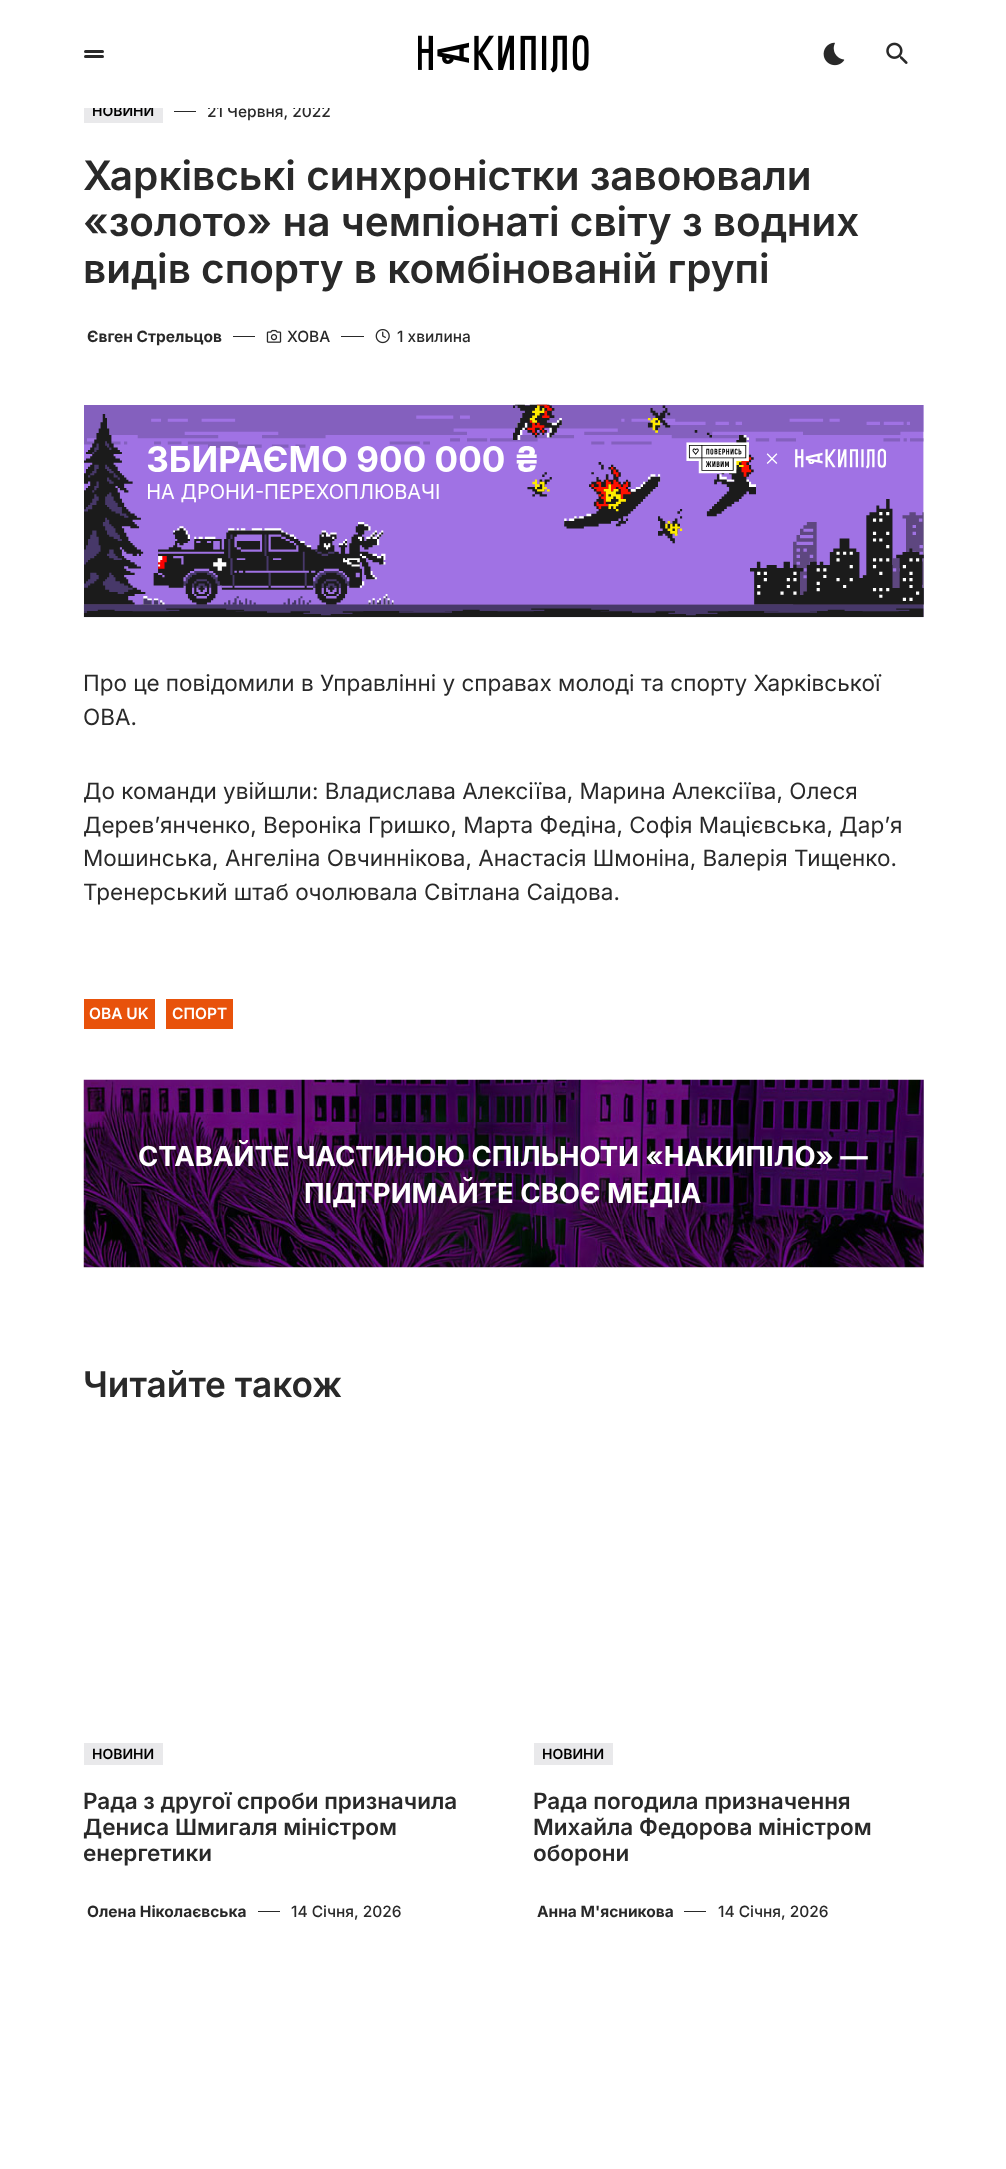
async function draw(canvas) {
  canvas.width = 1006;
  canvas.height = 2169;
  const ctx = canvas.getContext('2d');
  ctx.miterLimit = 4;
  ctx.fontKerning = 'normal';
  function label(s, x, y, font, color) {
    ctx.font = font;
    ctx.fillStyle = color;
    ctx.fillText(s, x, y);
  }
  function rect(x, y, w, h, color) {
    ctx.fillStyle = color;
    ctx.fillRect(x, y, w, h);
  }
  function roundedRect(x, y, w, h, r, color) {
    ctx.fillStyle = color;
    ctx.beginPath();
    ctx.roundRect(x, y, w, h, r);
    ctx.fill();
  }
  async function image(src, x, y, w, h) {
    const img = new Image();
    img.src = src;
    await img.decode();
    ctx.drawImage(img, x, y, w, h);
  }

  rect(0, 0, 1006, 2169, '#fff');
  rect(84, 108, 79, 15, '#e9e9eb');
  label('НОВИНИ', 92, 116, '600 14px Inter', '#000');
  label('21 Червня, 2022', 207, 117, '500 15.5px Inter', '#292929');
  rect(92, 105, 238, 3, '#fff');
  roundedRect(84, 50, 20, 3, 1.5, '#292929');
  roundedRect(84, 55, 20, 3, 1.5, '#292929');
  await image('assets/img1.png', 418, 35, 171, 38);
  await image('assets/img2.png', 823, 42, 22, 24);
  await image('assets/img3.png', 886, 42, 22, 22);
  rect(174, 111, 22, 1, '#292929');
  label('Харківські синхроністки завоювали', 83, 190, '600 40.5px Inter', '#292929');
  label('«золото» на чемпіонаті світу з водних', 83, 236, '600 40.5px Inter', '#292929');
  label('видів спорту в комбінованій групі', 83, 283, '600 40.5px Inter', '#292929');
  label('Євген Стрельцов', 87, 342, 'bold 15.5px Inter', '#292929');
  rect(233, 336, 22, 1, '#292929');
  await image('assets/img4.png', 266, 329, 16, 14);
  label('ХОВА', 287, 342, '500 15.5px Inter', '#292929');
  rect(341, 336, 23, 1, '#292929');
  await image('assets/img5.png', 375, 329, 15, 15);
  label('1 хвилина', 397, 342, '500 15.5px Inter', '#292929');
  await image('assets/img6.png', 83, 404, 841, 214);
  label('Про це повідомили в Управлінні у справах молоді та спорту Харківської', 83, 691, '22.5px Inter', '#292929');
  label('ОВА.', 83, 725, '22.5px Inter', '#292929');
  label('До команди увійшли: Владислава Алексіїва, Марина Алексіїва, Олеся', 83, 799, '22.5px Inter', '#292929');
  label('Дерев’янченко, Вероніка Гришко, Марта Федіна, Софія Мацієвська, Дар’я', 83, 833, '22.5px Inter', '#292929');
  label('Мошинська, Ангеліна Овчиннікова, Анастасія Шмоніна, Валерія Тищенко.', 83, 866, '22.5px Inter', '#292929');
  label('Тренерський штаб очолювала Світлана Саідова.', 83, 900, '22.5px Inter', '#292929');
  rect(84, 999, 71, 30, '#e8520b');
  label('ОВА UK', 89, 1019, '600 15.5px Inter', '#fff');
  rect(166, 999, 67, 30, '#e8520b');
  label('СПОРТ', 172, 1019, '600 15.5px Inter', '#fff');
  await image('assets/img7.png', 83, 1079, 841, 189);
  label('СТАВАЙТЕ ЧАСТИНОЮ СПІЛЬНОТИ «НАКИПІЛО» —', 138, 1166, 'bold 27.5px Inter', '#fff');
  label('ПІДТРИМАЙТЕ СВОЄ МЕДІА', 304, 1203, 'bold 27.5px Inter', '#fff');
  label('Читайте також', 83, 1397, '600 35.25px Inter', '#292929');
  rect(84, 1743, 79, 22, '#e9e9eb');
  label('НОВИНИ', 92, 1759, '600 14px Inter', '#000');
  label('Рада з другої спроби призначила', 83, 1809, '600 22.5px Inter', '#292929');
  label('Дениса Шмигаля міністром', 83, 1835, '600 22.5px Inter', '#292929');
  label('енергетики', 83, 1861, '600 22.5px Inter', '#292929');
  label('Олена Ніколаєвська', 87, 1917, 'bold 15.5px Inter', '#292929');
  rect(258, 1911, 22, 1, '#292929');
  label('14 Січня, 2026', 291, 1917, '500 15.5px Inter', '#292929');
  rect(534, 1743, 79, 22, '#e9e9eb');
  label('НОВИНИ', 542, 1759, '600 14px Inter', '#000');
  label('Рада погодила призначення', 533, 1809, '600 22.5px Inter', '#292929');
  label('Михайла Федорова міністром', 533, 1835, '600 22.5px Inter', '#292929');
  label('оборони', 533, 1861, '600 22.5px Inter', '#292929');
  label('Анна М\'ясникова', 537, 1917, 'bold 15.5px Inter', '#292929');
  rect(684, 1911, 22, 1, '#292929');
  label('14 Січня, 2026', 718, 1917, '500 15.5px Inter', '#292929');
}

draw(document.querySelector('canvas'));
